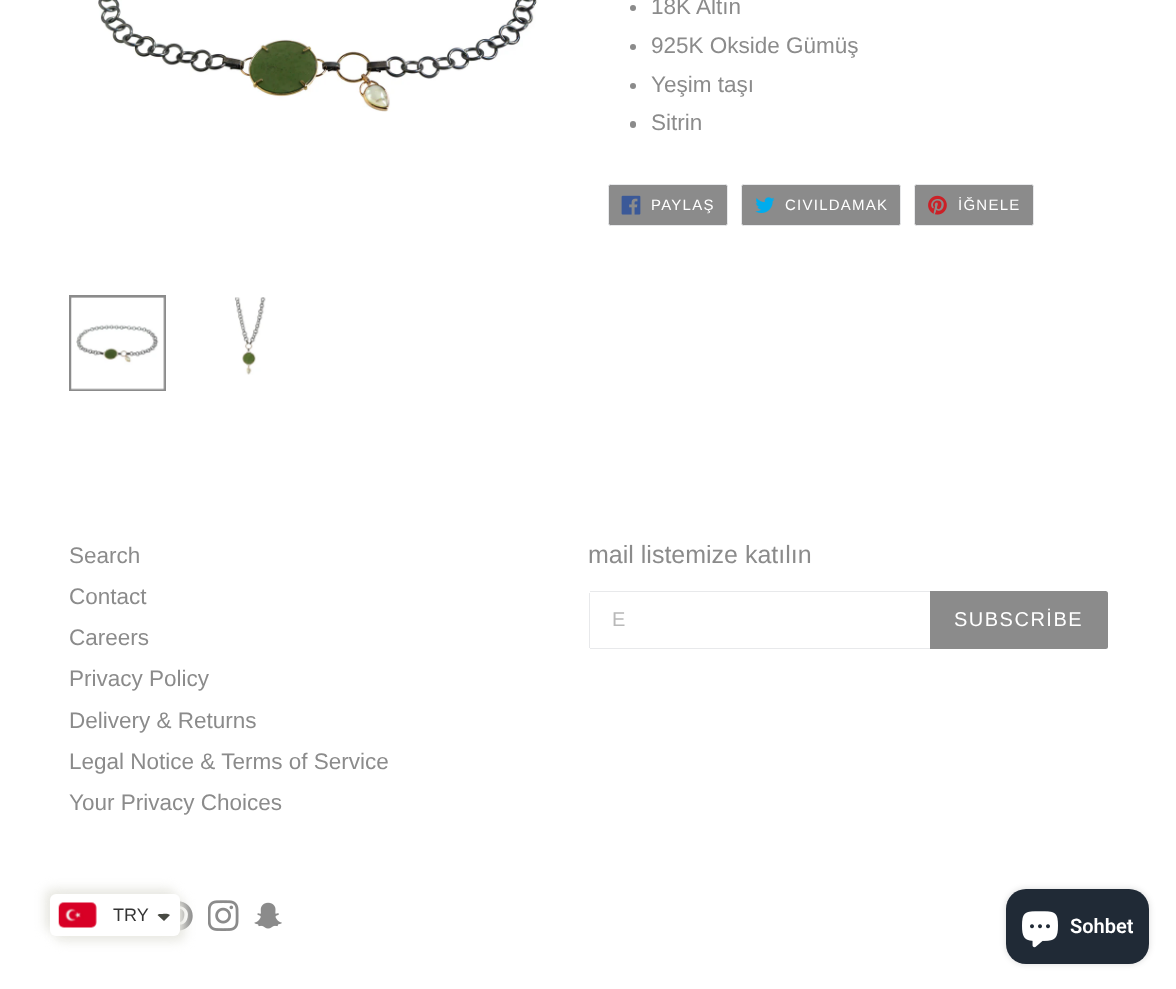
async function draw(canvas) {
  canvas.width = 1176;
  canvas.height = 989;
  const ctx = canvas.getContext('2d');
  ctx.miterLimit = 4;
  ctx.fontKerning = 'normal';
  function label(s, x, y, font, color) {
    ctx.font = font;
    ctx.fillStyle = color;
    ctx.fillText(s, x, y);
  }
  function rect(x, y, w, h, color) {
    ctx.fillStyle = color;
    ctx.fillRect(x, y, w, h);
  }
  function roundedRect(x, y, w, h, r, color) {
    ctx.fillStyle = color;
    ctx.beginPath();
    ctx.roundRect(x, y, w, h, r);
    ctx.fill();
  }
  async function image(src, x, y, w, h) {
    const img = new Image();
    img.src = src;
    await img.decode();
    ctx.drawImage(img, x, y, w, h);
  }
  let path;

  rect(0, 0, 1176, 989, '#fff');
  await image('assets/img1.png', 98, 0, 440, 112);
  ctx.strokeStyle = '#8b8b8b';
  ctx.lineWidth = 3;
  ctx.strokeRect(70.5, 296.5, 94, 93);
  await image('assets/img2.png', 71, 297, 94, 93);
  await image('assets/img3.png', 234, 297, 32, 78);
  ctx.fillStyle = '#8b8b8b';
  ctx.beginPath();
  ctx.arc(633, 8, 3, 0, 2 * Math.PI);
  ctx.fill();
  label('18K Altın', 651, 14, '22.5px Liberation Sans', '#8b8b8b');
  ctx.beginPath();
  ctx.arc(633, 47, 3, 0, 2 * Math.PI);
  ctx.fill();
  label('925K Okside Gümüş', 651, 53, '22.5px Liberation Sans', '#8b8b8b');
  ctx.beginPath();
  ctx.arc(633, 86, 3, 0, 2 * Math.PI);
  ctx.fill();
  label('Yeşim taşı', 651, 92, '22.5px Liberation Sans', '#8b8b8b');
  roundedRect(630, 121, 6, 7, 3, '#8b8b8b');
  label('Sitrin', 651, 130, '22.5px Liberation Sans', '#8b8b8b');
  ctx.beginPath();
  ctx.roundRect(608.5, 184.5, 119, 41, 2);
  ctx.fill();
  ctx.strokeStyle = '#e8e9eb';
  ctx.lineWidth = 1;
  ctx.stroke();
  await image('assets/img4.png', 621, 195, 20, 20);
  ctx.letterSpacing = '1.25px';
  label('PAYLAŞ', 651, 210, '15px Liberation Sans', '#fff');
  ctx.fillStyle = '#8b8b8b';
  ctx.beginPath();
  ctx.roundRect(741.5, 184.5, 159, 41, 2);
  ctx.fill();
  ctx.stroke();
  await image('assets/img5.png', 755, 197, 20, 16);
  label('CIVILDAMAK', 785, 210, '15px Liberation Sans', '#fff');
  ctx.fillStyle = '#8b8b8b';
  ctx.beginPath();
  ctx.roundRect(914.5, 184.5, 119, 41, 2);
  ctx.fill();
  ctx.stroke();
  await image('assets/img6.png', 928, 195, 19, 20);
  label('İĞNELE', 958, 210, '15px Liberation Sans', '#fff');
  ctx.letterSpacing = '0px';
  label('Search', 69, 563, '22.5px Liberation Sans', '#8b8b8b');
  label('Contact', 69, 604, '22.5px Liberation Sans', '#8b8b8b');
  label('Careers', 69, 645, '22.5px Liberation Sans', '#8b8b8b');
  label('Privacy Policy', 69, 686, '22.5px Liberation Sans', '#8b8b8b');
  label('Delivery & Returns', 69, 728, '22.5px Liberation Sans', '#8b8b8b');
  label('Legal Notice & Terms of Service', 69, 769, '22.5px Liberation Sans', '#8b8b8b');
  label('Your Privacy Choices', 69, 810, '22.5px Liberation Sans', '#8b8b8b');
  label('mail listemize katılın', 588, 563, '25px Liberation Sans', '#8b8b8b');
  rect(590, 591, 340, 1, '#e8e9eb');
  rect(590, 648, 340, 1, '#e8e9eb');
  rect(589, 593, 1, 55, '#e8e9eb');
  label('E', 612, 626, '20px Liberation Sans', '#b9b9b9');
  ctx.fillStyle = '#8b8b8b';
  ctx.beginPath();
  ctx.roundRect(930, 591, 178, 58, [0, 2.5, 2.5, 0]);
  ctx.fill();
  ctx.letterSpacing = '1.5px';
  label('SUBSCRİBE', 954, 626, '20px Liberation Sans', '#fff');
  await image('assets/img7.png', 179, 901, 14, 30);
  await image('assets/img8.png', 208, 900, 31, 31);
  await image('assets/img9.png', 254, 902, 28, 27);
  ctx.fillStyle = '#e8e8e2';
  ctx.filter = 'blur(5.5px)';
  ctx.beginPath();
  ctx.roundRect(45, 889, 130, 42, 6);
  ctx.fill();
  ctx.filter = 'none';
  ctx.filter = 'blur(5.5px)';
  ctx.beginPath();
  ctx.roundRect(55, 899, 130, 42, 6);
  ctx.fill();
  ctx.filter = 'none';
  roundedRect(50, 894, 130, 42, 6, '#fff');
  await image('assets/img10.png', 58, 902, 39, 26);
  ctx.letterSpacing = '0px';
  label('TRY', 113, 921, '18px Liberation Sans', '#333');
  ctx.fillStyle = '#474942';
  path = new Path2D('M160 914C162.5 914 168 913 170 915L164 921L157.5 915C158 914.5 159 914 160 914Z');
  ctx.fill(path);
  ctx.fillStyle = '#00000026';
  ctx.filter = 'blur(3px)';
  ctx.beginPath();
  ctx.roundRect(1006, 889, 143, 75, 20);
  ctx.fill();
  ctx.filter = 'none';
  roundedRect(1006, 889, 143, 75, 20, '#202a36');
  await image('assets/img11.png', 1022, 911, 36, 37);
  label('Sohbet', 1070, 933, '600 20px Roboto', '#fff');
}

draw(document.querySelector('canvas'));
